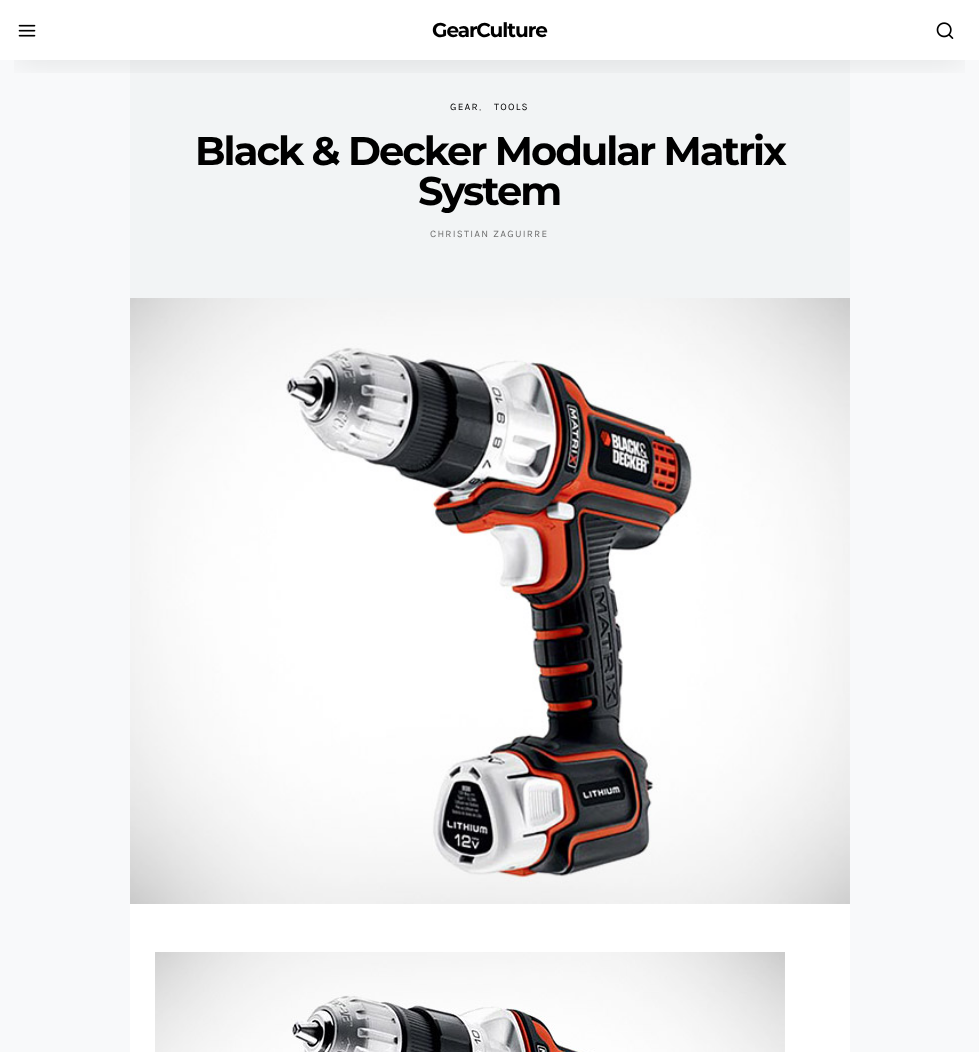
async function draw(canvas) {
  canvas.width = 979;
  canvas.height = 1052;
  const ctx = canvas.getContext('2d');
  ctx.miterLimit = 4;
  ctx.fontKerning = 'normal';
  function label(s, x, y, font, color) {
    ctx.font = font;
    ctx.fillStyle = color;
    ctx.fillText(s, x, y);
  }
  function rect(x, y, w, h, color) {
    ctx.fillStyle = color;
    ctx.fillRect(x, y, w, h);
  }
  async function image(src, x, y, w, h) {
    const img = new Image();
    img.src = src;
    await img.decode();
    ctx.drawImage(img, x, y, w, h);
  }

  rect(0, 0, 979, 1052, '#f8f9fa');
  rect(0, 0, 979, 60, '#fff');
  rect(130, 60, 720, 238, '#f2f4f5');
  ctx.save();
  ctx.beginPath();
  ctx.rect(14, 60, 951, 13);
  ctx.clip();
  ctx.fillStyle = '#0000001a';
  ctx.filter = 'blur(16px)';
  ctx.beginPath();
  ctx.rect(16, 32, 947, 28);
  ctx.fill();
  ctx.filter = 'none';
  ctx.restore();
  await image('assets/img1.png', 18, 24, 18, 13);
  ctx.letterSpacing = '-1px';
  label('GearCulture', 432, 37, '100 20px Montserrat', '#000');
  await image('assets/img2.png', 936, 22, 18, 17);
  rect(130, 904, 720, 148, '#fff');
  ctx.letterSpacing = '1.25px';
  label('GEAR', 450, 110, '10px Karla', '#000');
  label(',', 479, 110, '10px Karla', '#707070');
  label('TOOLS', 494, 110, '10px Karla', '#000');
  ctx.letterSpacing = '-2px';
  label('Black & Decker Modular Matrix', 195, 165, '100 40px Montserrat', '#000');
  label('System', 418, 205, '100 40px Montserrat', '#000');
  ctx.letterSpacing = '1.25px';
  label('CHRISTIAN ZAGUIRRE', 430, 237, '10px Karla', '#707070');
  await image('assets/img3.png', 130, 298, 720, 606);
  await image('assets/img4.png', 155, 952, 630, 100);
}

draw(document.querySelector('canvas'));
